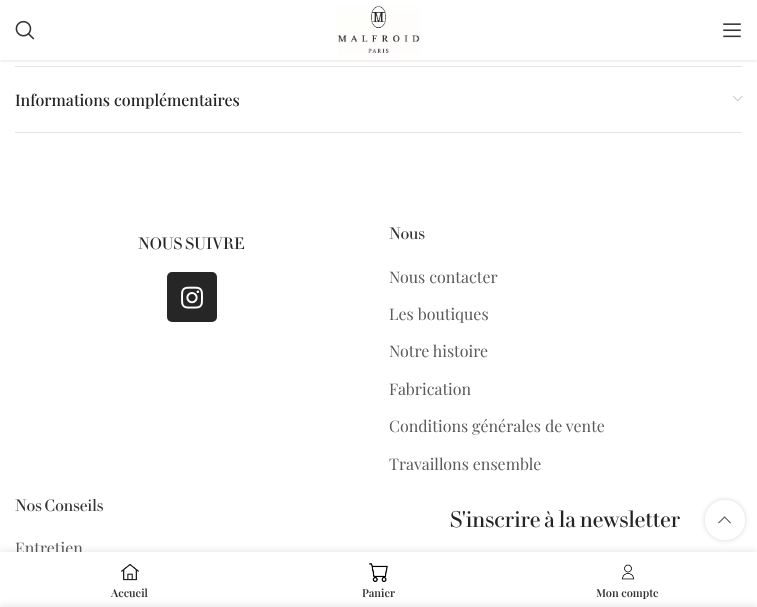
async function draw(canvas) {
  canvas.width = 757;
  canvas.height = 607;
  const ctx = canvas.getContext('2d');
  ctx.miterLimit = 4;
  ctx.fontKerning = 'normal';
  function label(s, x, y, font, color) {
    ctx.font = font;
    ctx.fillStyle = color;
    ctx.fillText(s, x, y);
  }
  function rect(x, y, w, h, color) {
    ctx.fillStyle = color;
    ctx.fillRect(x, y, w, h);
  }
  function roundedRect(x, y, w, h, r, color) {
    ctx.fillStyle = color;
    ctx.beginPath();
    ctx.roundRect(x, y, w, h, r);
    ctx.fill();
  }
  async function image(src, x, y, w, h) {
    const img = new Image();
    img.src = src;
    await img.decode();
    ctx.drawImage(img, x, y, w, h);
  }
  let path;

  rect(0, 0, 757, 607, '#fff');
  rect(15, 66, 727, 1, '#e4e4e4');
  ctx.fillStyle = '#0000001a';
  ctx.filter = 'blur(1.5px)';
  ctx.beginPath();
  ctx.rect(0, 1, 757, 60);
  ctx.fill();
  ctx.filter = 'none';
  rect(0, 0, 757, 60, '#fff');
  await image('assets/img1.png', 15, 20, 20, 20);
  await image('assets/img2.png', 337, 5, 83, 50);
  await image('assets/img3.png', 723, 23, 18, 15);
  rect(15, 132, 727, 1, '#e4e4e4');
  label('Informations complémentaires', 15, 106, '500 16px Playfair Display', '#242424');
  await image('assets/img4.png', 733, 96, 10, 5);
  await image('assets/img5.png', 138, 237, 107, 13);
  roundedRect(167, 272, 50, 50, 5, '#262626');
  await image('assets/img6.png', 181, 286, 22, 23);
  await image('assets/img7.png', 389, 227, 36, 13);
  label('Nous contacter', 389, 283, '16px Playfair Display', '#5b5a5a');
  label('Les boutiques', 389, 320, '16px Playfair Display', '#5b5a5a');
  label('Notre histoire', 389, 357, '16px Playfair Display', '#5b5a5a');
  label('Fabrication', 389, 395, '16px Playfair Display', '#5b5a5a');
  label('Conditions générales de vente', 389, 432, '16px Playfair Display', '#5b5a5a');
  label('Travaillons ensemble', 389, 470, '16px Playfair Display', '#5b5a5a');
  await image('assets/img8.png', 450, 510, 230, 18);
  await image('assets/img9.png', 15, 499, 88, 13);
  label('Entretien', 15, 554, '16px Playfair Display', '#5b5a5a');
  ctx.save();
  path = new Path2D('M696 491H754V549H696ZM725 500C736 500 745 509 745 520C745 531 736 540 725 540C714 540 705 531 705 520C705 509 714 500 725 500Z');
  ctx.clip(path, 'evenodd');
  ctx.fillStyle = '#0000002b';
  ctx.filter = 'blur(2.5px)';
  ctx.beginPath();
  ctx.roundRect(705, 500, 40, 40, 20);
  ctx.fill();
  ctx.filter = 'none';
  ctx.restore();
  ctx.fillStyle = '#ffffffe6';
  ctx.beginPath();
  ctx.arc(725, 520, 20, 0, 2 * Math.PI);
  ctx.fill();
  await image('assets/img10.png', 718, 516, 13, 8);
  ctx.fillStyle = '#0000001f';
  ctx.filter = 'blur(4.5px)';
  ctx.beginPath();
  ctx.rect(0, 552, 757, 55);
  ctx.fill();
  ctx.filter = 'none';
  rect(0, 552, 757, 55, '#fff');
  await image('assets/img11.png', 121, 563, 18, 18);
  label('Accueil', 111, 597, '600 11px Playfair Display', '#333');
  await image('assets/img12.png', 369, 563, 19, 19);
  label('Panier', 362, 597, '600 11px Playfair Display', '#333');
  await image('assets/img13.png', 621, 564, 14, 16);
  label('Mon compte', 596, 597, '600 11px Playfair Display', '#333');
  ctx.fillStyle = '#00000024';
  ctx.filter = 'blur(4.5px)';
  ctx.beginPath();
  ctx.rect(0, 607, 757, 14);
  ctx.fill();
  ctx.filter = 'none';
}

draw(document.querySelector('canvas'));
